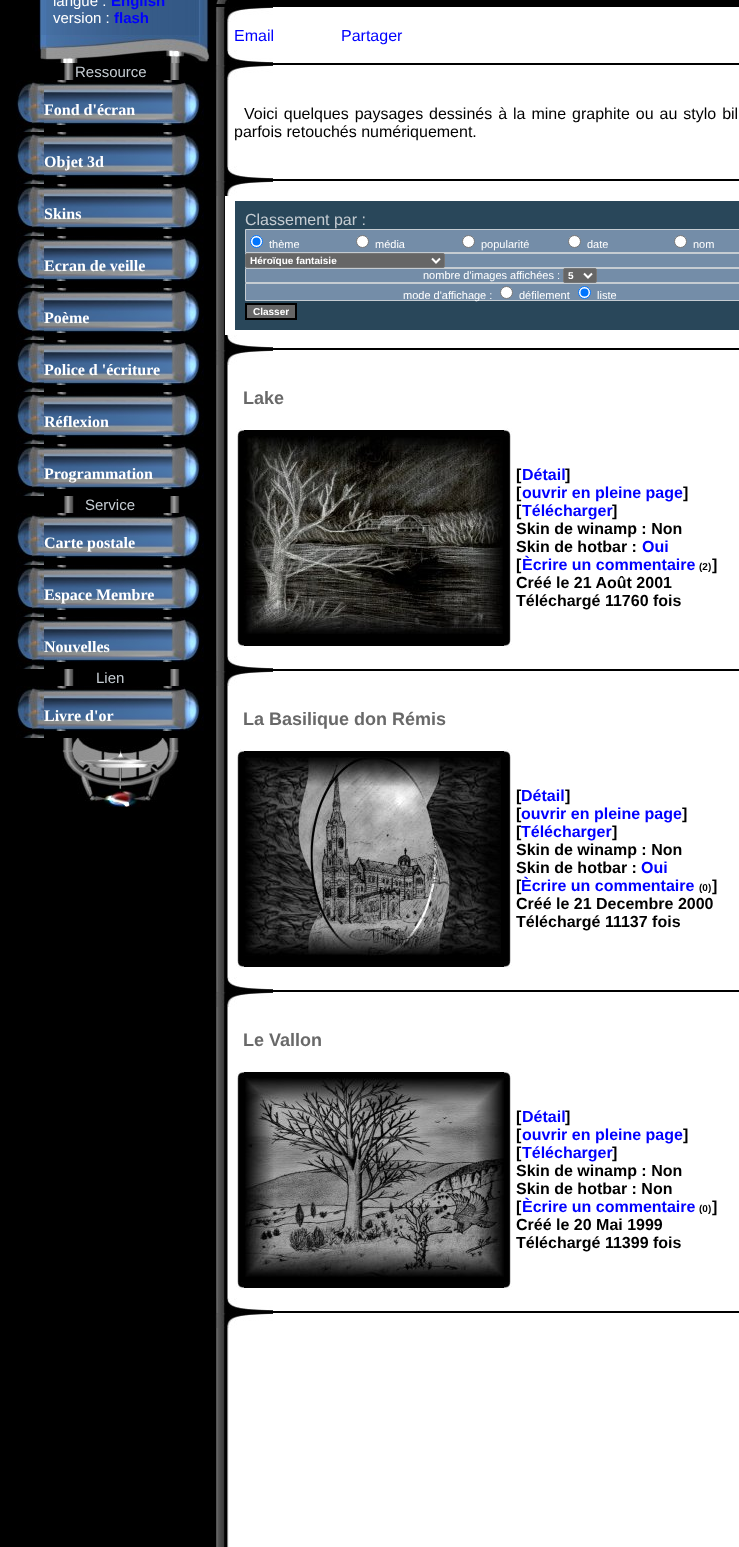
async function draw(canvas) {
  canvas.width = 739;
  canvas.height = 1547;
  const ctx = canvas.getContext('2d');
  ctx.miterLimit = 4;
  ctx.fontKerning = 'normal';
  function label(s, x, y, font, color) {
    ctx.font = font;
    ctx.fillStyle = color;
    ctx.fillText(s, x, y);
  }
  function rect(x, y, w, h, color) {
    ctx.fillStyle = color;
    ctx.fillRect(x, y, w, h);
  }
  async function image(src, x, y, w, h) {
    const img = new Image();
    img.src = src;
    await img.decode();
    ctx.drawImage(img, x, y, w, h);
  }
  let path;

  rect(0, 0, 739, 1547, '#000');
  await image('assets/img1.png', 39, 0, 170, 35);
  label('langue :', 53, 6, '15px Liberation Sans', '#fff');
  label('English', 111, 6, 'bold 15px Liberation Sans', '#00f');
  label('version :', 53, 23, '15px Liberation Sans', '#fff');
  label('flash', 114, 23, 'bold 15px Liberation Sans', '#00f');
  await image('assets/img2.png', 32, 35, 178, 28);
  await image('assets/img3.png', 64, 63, 116, 17);
  label('Ressource', 75, 77, '15px Liberation Sans', '#c5ccd2');
  await image('assets/img4.png', 16, 80, 28, 52);
  await image('assets/img5.png', 44, 80, 160, 45);
  label('Fond d\'écran', 44, 115, 'bold 16px Liberation Serif', '#fff');
  await image('assets/img4.png', 16, 132, 28, 52);
  await image('assets/img5.png', 44, 132, 160, 45);
  label('Objet 3d', 44, 167, 'bold 16px Liberation Serif', '#fff');
  await image('assets/img4.png', 16, 184, 28, 52);
  await image('assets/img5.png', 44, 184, 160, 45);
  label('Skins', 44, 219, 'bold 16px Liberation Serif', '#fff');
  await image('assets/img4.png', 16, 236, 28, 52);
  await image('assets/img5.png', 44, 236, 160, 45);
  label('Ecran de veille', 44, 271, 'bold 16px Liberation Serif', '#fff');
  await image('assets/img4.png', 16, 288, 28, 52);
  await image('assets/img5.png', 44, 288, 160, 45);
  label('Poème', 44, 323, 'bold 16px Liberation Serif', '#fff');
  await image('assets/img4.png', 16, 340, 28, 52);
  await image('assets/img5.png', 44, 340, 160, 45);
  label('Police d \'écriture', 44, 375, 'bold 16px Liberation Serif', '#fff');
  await image('assets/img4.png', 16, 392, 28, 52);
  await image('assets/img5.png', 44, 392, 160, 45);
  label('Réflexion', 44, 427, 'bold 16px Liberation Serif', '#fff');
  await image('assets/img4.png', 16, 444, 28, 52);
  await image('assets/img5.png', 44, 444, 160, 45);
  label('Programmation', 44, 479, 'bold 16px Liberation Serif', '#fff');
  await image('assets/img3.png', 64, 496, 116, 17);
  label('Service', 85, 510, '15px Liberation Sans', '#c5ccd2');
  await image('assets/img4.png', 16, 513, 28, 52);
  await image('assets/img5.png', 44, 513, 160, 45);
  label('Carte postale', 44, 548, 'bold 16px Liberation Serif', '#fff');
  await image('assets/img4.png', 16, 565, 28, 52);
  await image('assets/img5.png', 44, 565, 160, 45);
  label('Espace Membre', 44, 600, 'bold 16px Liberation Serif', '#fff');
  await image('assets/img4.png', 16, 617, 28, 52);
  await image('assets/img5.png', 44, 617, 160, 45);
  label('Nouvelles', 44, 652, 'bold 16px Liberation Serif', '#fff');
  await image('assets/img3.png', 64, 669, 116, 17);
  label('Lien', 96, 683, '15px Liberation Sans', '#c5ccd2');
  await image('assets/img4.png', 16, 686, 28, 52);
  await image('assets/img5.png', 44, 686, 160, 45);
  label('Livre d\'or', 44, 721, 'bold 16px Liberation Serif', '#fff');
  await image('assets/img6.png', 62, 738, 117, 69);
  await image('assets/img7.png', 216, 0, 13, 4);
  rect(736, 3, 1, 1, '#060000');
  await image('assets/img8.png', 215, 7, 58, 15);
  rect(273, 7, 466, 15, '#fff');
  await image('assets/img9.png', 216, 22, 13, 28);
  rect(229, 22, 510, 28, '#fff');
  label('Email', 234, 41, '16px Liberation Sans', '#00f');
  label('Partager', 341, 41, '16px Liberation Sans', '#00f');
  await image('assets/img10.png', 216, 50, 57, 15);
  rect(273, 50, 466, 13, '#fff');
  await image('assets/img8.png', 215, 65, 58, 15);
  rect(273, 65, 466, 15, '#fff');
  await image('assets/img11.png', 216, 80, 13, 86);
  rect(229, 80, 510, 86, '#fff');
  ctx.wordSpacing = '1.5px';
  label('Voici quelques paysages dessinés à la mine graphite ou au stylo bil', 244, 119, '16px Liberation Sans', '#000');
  ctx.wordSpacing = '0px';
  label('parfois retouchés numériquement.', 234, 137, '16px Liberation Sans', '#000');
  await image('assets/img10.png', 216, 166, 57, 15);
  rect(273, 166, 466, 13, '#fff');
  await image('assets/img8.png', 215, 181, 58, 15);
  rect(273, 181, 466, 15, '#fff');
  await image('assets/img12.png', 216, 196, 9, 139);
  rect(225, 196, 514, 139, '#fff');
  rect(235, 201, 504, 129, '#29475a');
  label('Classement par :', 245, 225, '16px Liberation Sans', '#c5ccd2');
  ctx.fillStyle = '#748da8';
  ctx.beginPath();
  ctx.rect(245.5, 229.5, 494, 23);
  ctx.fill();
  ctx.strokeStyle = '#c5ccd2';
  ctx.stroke();
  ctx.fillStyle = '#fff';
  ctx.beginPath();
  ctx.arc(256.5, 241.5, 6, 0, 2 * Math.PI);
  ctx.fill();
  ctx.strokeStyle = '#0075ff';
  ctx.stroke();
  ctx.fillStyle = '#0075ff';
  ctx.beginPath();
  ctx.arc(256.5, 241.5, 4, 0, 2 * Math.PI);
  ctx.fill();
  label('thème', 269, 248, '11px Liberation Sans', '#fff');
  ctx.beginPath();
  ctx.arc(362.5, 241.5, 6, 0, 2 * Math.PI);
  ctx.fill();
  ctx.strokeStyle = '#767676';
  ctx.stroke();
  label('média', 375, 248, '11px Liberation Sans', '#fff');
  ctx.beginPath();
  ctx.arc(468.5, 241.5, 6, 0, 2 * Math.PI);
  ctx.fill();
  ctx.stroke();
  label('popularité', 481, 248, '11px Liberation Sans', '#fff');
  ctx.beginPath();
  ctx.arc(574.5, 241.5, 6, 0, 2 * Math.PI);
  ctx.fill();
  ctx.stroke();
  label('date', 587, 248, '11px Liberation Sans', '#fff');
  ctx.beginPath();
  ctx.arc(680.5, 241.5, 6, 0, 2 * Math.PI);
  ctx.fill();
  ctx.stroke();
  label('nom', 693, 248, '11px Liberation Sans', '#fff');
  rect(444, 254, 295, 13, '#748da8');
  ctx.strokeStyle = '#c5ccd2';
  ctx.strokeRect(245.5, 253.5, 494, 14);
  ctx.fillStyle = '#666';
  ctx.beginPath();
  ctx.roundRect(245.5, 253.5, 199, 14, 1.5);
  ctx.fill();
  ctx.strokeStyle = '#767676';
  ctx.stroke();
  path = new Path2D('M432 258.5L436 262.5L440 258.5');
  ctx.strokeStyle = '#fff';
  ctx.lineWidth = 2;
  ctx.stroke(path);
  label('Héroïque fantaisie', 250, 264, 'bold 10px Liberation Sans', '#fff');
  ctx.fillStyle = '#748da8';
  ctx.beginPath();
  ctx.rect(245.5, 268.5, 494, 14);
  ctx.fill();
  ctx.strokeStyle = '#c5ccd2';
  ctx.lineWidth = 1;
  ctx.stroke();
  label('nombre d\'images affichées :', 423, 279, '11px Liberation Sans', '#fff');
  ctx.fillStyle = '#666';
  ctx.beginPath();
  ctx.roundRect(563.5, 268.5, 33, 14, 1.5);
  ctx.fill();
  ctx.strokeStyle = '#767676';
  ctx.stroke();
  path = new Path2D('M584 273.5L588 277.5L592 273.5');
  ctx.strokeStyle = '#fff';
  ctx.lineWidth = 2;
  ctx.stroke(path);
  label('5', 568, 279, 'bold 10px Liberation Sans', '#fff');
  ctx.fillStyle = '#748da8';
  ctx.beginPath();
  ctx.rect(245.5, 283.5, 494, 17);
  ctx.fill();
  ctx.strokeStyle = '#c5ccd2';
  ctx.lineWidth = 1;
  ctx.stroke();
  label('mode d\'affichage :', 403, 299, '11px Liberation Sans', '#fff');
  ctx.beginPath();
  ctx.arc(506.5, 292.5, 6, 0, 2 * Math.PI);
  ctx.fill();
  ctx.strokeStyle = '#767676';
  ctx.stroke();
  label('défilement', 519, 299, '11px Liberation Sans', '#fff');
  ctx.beginPath();
  ctx.arc(584.5, 292.5, 6, 0, 2 * Math.PI);
  ctx.fill();
  ctx.strokeStyle = '#0075ff';
  ctx.stroke();
  ctx.fillStyle = '#0075ff';
  ctx.beginPath();
  ctx.arc(584.5, 292.5, 4, 0, 2 * Math.PI);
  ctx.fill();
  label('liste', 597, 299, '11px Liberation Sans', '#fff');
  ctx.fillStyle = '#666';
  ctx.beginPath();
  ctx.rect(246, 304, 50, 15);
  ctx.fill();
  ctx.strokeStyle = '#000';
  ctx.lineWidth = 2;
  ctx.stroke();
  label('Classer', 253, 315, 'bold 10px Liberation Sans', '#fff');
  await image('assets/img10.png', 216, 335, 57, 15);
  rect(273, 335, 466, 13, '#fff');
  await image('assets/img8.png', 215, 350, 58, 15);
  rect(273, 350, 466, 15, '#fff');
  await image('assets/img13.png', 216, 365, 12, 291);
  rect(228, 365, 511, 291, '#fff');
  label('Lake', 243, 404, 'bold 18px Liberation Sans', '#696969');
  await image('assets/img14.png', 236, 428, 8, 8);
  rect(244, 430, 260, 6, '#010101');
  await image('assets/img15.png', 504, 428, 8, 8);
  await image('assets/img16.png', 237, 436, 7, 204);
  rect(244, 436, 260, 204, '#000');
  await image('assets/img17.png', 244, 436, 259, 198);
  await image('assets/img18.png', 504, 436, 7, 204);
  await image('assets/img19.png', 236, 640, 8, 8);
  rect(244, 640, 260, 6, '#010101');
  await image('assets/img20.png', 504, 640, 8, 8);
  label('[', 516, 480, 'bold 16px Liberation Sans', '#000');
  label('Détail', 522, 480, 'bold 16px Liberation Sans', '#00f');
  label(']', 565, 480, 'bold 16px Liberation Sans', '#000');
  label('[', 516, 498, 'bold 16px Liberation Sans', '#000');
  label('ouvrir en pleine page', 522, 498, 'bold 16px Liberation Sans', '#00f');
  label(']', 683, 498, 'bold 16px Liberation Sans', '#000');
  label('[', 516, 516, 'bold 16px Liberation Sans', '#000');
  label('Télécharger', 522, 516, 'bold 16px Liberation Sans', '#00f');
  label(']', 612, 516, 'bold 16px Liberation Sans', '#000');
  label('Skin de winamp : Non', 516, 534, 'bold 16px Liberation Sans', '#000');
  label('Skin de hotbar :', 516, 552, 'bold 16px Liberation Sans', '#000');
  label('Oui', 642, 552, 'bold 16px Liberation Sans', '#00f');
  label('[', 516, 570, 'bold 16px Liberation Sans', '#000');
  label('Ècrire un commentaire', 522, 570, 'bold 16px Liberation Sans', '#00f');
  label('(2)', 699, 570, 'bold 10px Liberation Sans', '#000');
  label(']', 712, 570, 'bold 16px Liberation Sans', '#000');
  label('Créé le 21 Août 2001', 516, 588, 'bold 16px Liberation Sans', '#000');
  label('Téléchargé 11760 fois', 516, 606, 'bold 16px Liberation Sans', '#000');
  await image('assets/img10.png', 216, 656, 57, 15);
  rect(273, 656, 466, 13, '#fff');
  await image('assets/img8.png', 215, 671, 58, 15);
  rect(273, 671, 466, 15, '#fff');
  await image('assets/img13.png', 216, 686, 12, 291);
  rect(228, 686, 511, 291, '#fff');
  label('La Basilique don Rémis', 243, 725, 'bold 18px Liberation Sans', '#696969');
  await image('assets/img14.png', 236, 749, 8, 8);
  rect(244, 751, 260, 6, '#010101');
  await image('assets/img15.png', 504, 749, 8, 8);
  await image('assets/img16.png', 237, 757, 7, 204);
  rect(244, 757, 260, 204, '#000');
  await image('assets/img21.png', 245, 757, 256, 199);
  await image('assets/img18.png', 504, 757, 7, 204);
  await image('assets/img19.png', 236, 961, 8, 8);
  rect(244, 961, 260, 6, '#010101');
  await image('assets/img20.png', 504, 961, 8, 8);
  label('[', 516, 801, 'bold 16px Liberation Sans', '#000');
  label('Détail', 521, 801, 'bold 16px Liberation Sans', '#00f');
  label(']', 565, 801, 'bold 16px Liberation Sans', '#000');
  label('[', 516, 819, 'bold 16px Liberation Sans', '#000');
  label('ouvrir en pleine page', 521, 819, 'bold 16px Liberation Sans', '#00f');
  label(']', 682, 819, 'bold 16px Liberation Sans', '#000');
  label('[', 516, 837, 'bold 16px Liberation Sans', '#000');
  label('Télécharger', 521, 837, 'bold 16px Liberation Sans', '#00f');
  label(']', 612, 837, 'bold 16px Liberation Sans', '#000');
  label('Skin de winamp : Non', 516, 855, 'bold 16px Liberation Sans', '#000');
  label('Skin de hotbar :', 516, 873, 'bold 16px Liberation Sans', '#000');
  label('Oui', 641, 873, 'bold 16px Liberation Sans', '#00f');
  label('[', 516, 891, 'bold 16px Liberation Sans', '#000');
  label('Ècrire un commentaire', 521, 891, 'bold 16px Liberation Sans', '#00f');
  label('(0)', 699, 891, 'bold 10px Liberation Sans', '#000');
  label(']', 712, 891, 'bold 16px Liberation Sans', '#000');
  label('Créé le 21 Decembre 2000', 516, 909, 'bold 16px Liberation Sans', '#000');
  label('Téléchargé 11137 fois', 516, 927, 'bold 16px Liberation Sans', '#000');
  await image('assets/img10.png', 216, 977, 57, 15);
  rect(273, 977, 466, 13, '#fff');
  await image('assets/img8.png', 215, 992, 58, 15);
  rect(273, 992, 466, 15, '#fff');
  await image('assets/img13.png', 216, 1007, 12, 291);
  rect(228, 1007, 511, 291, '#fff');
  label('Le Vallon', 243, 1046, 'bold 18px Liberation Sans', '#696969');
  await image('assets/img14.png', 236, 1070, 8, 8);
  rect(244, 1072, 260, 6, '#010101');
  await image('assets/img15.png', 504, 1070, 8, 8);
  await image('assets/img16.png', 237, 1078, 7, 204);
  rect(244, 1078, 260, 204, '#000');
  await image('assets/img22.png', 245, 1078, 259, 199);
  await image('assets/img18.png', 504, 1078, 7, 204);
  await image('assets/img19.png', 236, 1282, 8, 8);
  rect(244, 1282, 260, 6, '#010101');
  await image('assets/img20.png', 504, 1282, 8, 8);
  label('[', 516, 1122, 'bold 16px Liberation Sans', '#000');
  label('Détail', 522, 1122, 'bold 16px Liberation Sans', '#00f');
  label(']', 565, 1122, 'bold 16px Liberation Sans', '#000');
  label('[', 516, 1140, 'bold 16px Liberation Sans', '#000');
  label('ouvrir en pleine page', 522, 1140, 'bold 16px Liberation Sans', '#00f');
  label(']', 683, 1140, 'bold 16px Liberation Sans', '#000');
  label('[', 516, 1158, 'bold 16px Liberation Sans', '#000');
  label('Télécharger', 522, 1158, 'bold 16px Liberation Sans', '#00f');
  label(']', 612, 1158, 'bold 16px Liberation Sans', '#000');
  label('Skin de winamp : Non', 516, 1176, 'bold 16px Liberation Sans', '#000');
  label('Skin de hotbar : Non', 516, 1194, 'bold 16px Liberation Sans', '#000');
  label('[', 516, 1212, 'bold 16px Liberation Sans', '#000');
  label('Ècrire un commentaire', 522, 1212, 'bold 16px Liberation Sans', '#00f');
  label('(0)', 699, 1212, 'bold 10px Liberation Sans', '#000');
  label(']', 712, 1212, 'bold 16px Liberation Sans', '#000');
  label('Créé le 20 Mai 1999', 516, 1230, 'bold 16px Liberation Sans', '#000');
  label('Téléchargé 11399 fois', 516, 1248, 'bold 16px Liberation Sans', '#000');
  await image('assets/img10.png', 216, 1298, 57, 15);
  rect(273, 1298, 466, 13, '#fff');
  await image('assets/img8.png', 215, 1313, 58, 15);
  rect(273, 1313, 466, 15, '#fff');
  await image('assets/img23.png', 216, 1328, 13, 219);
  rect(229, 1328, 510, 219, '#fff');
}

draw(document.querySelector('canvas'));
